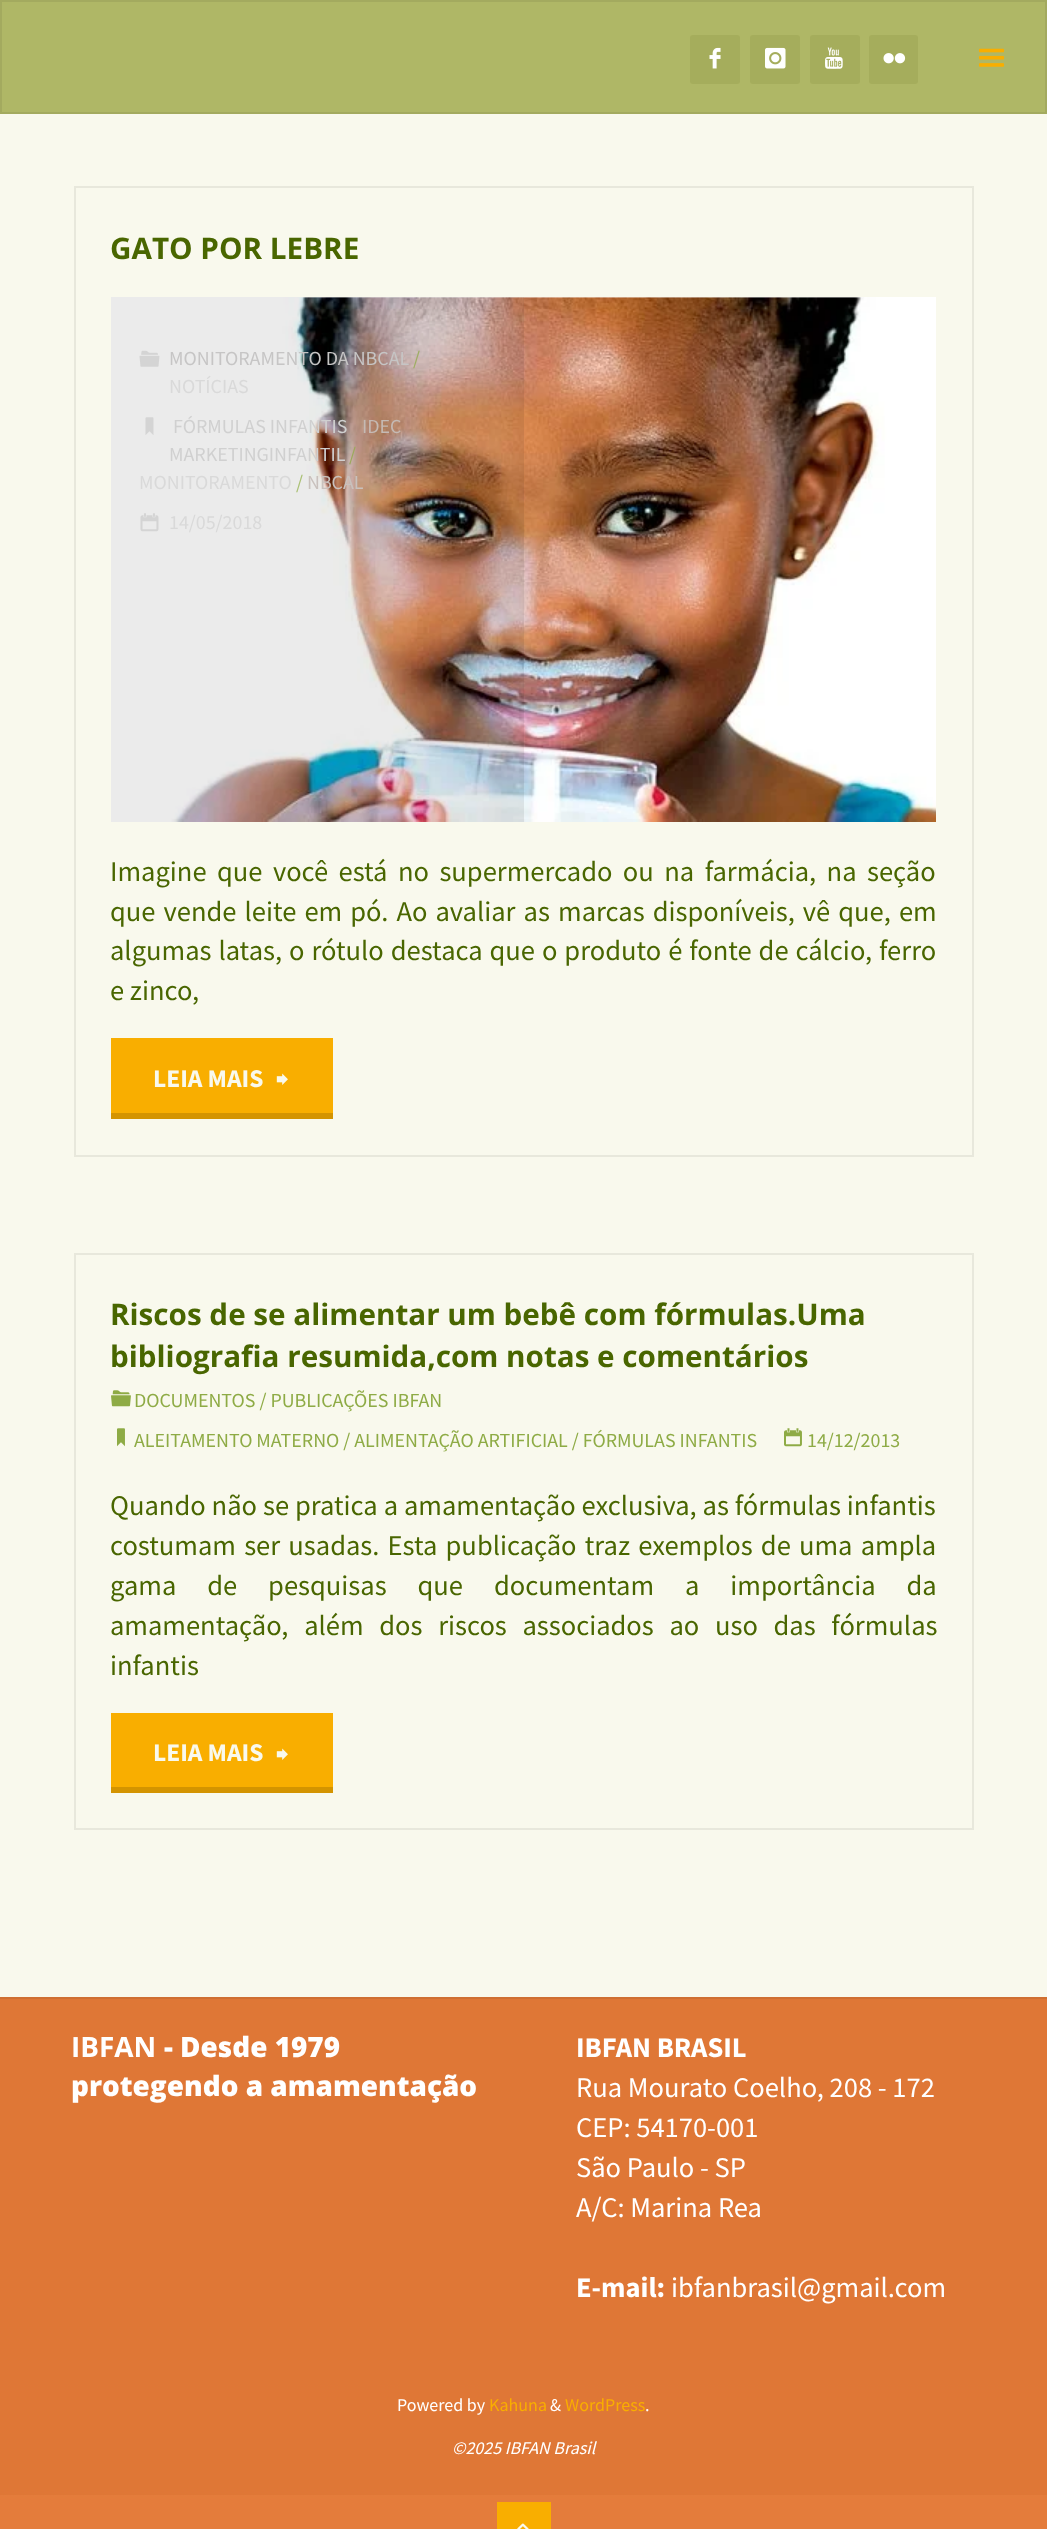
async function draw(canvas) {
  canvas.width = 1047;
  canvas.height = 2529;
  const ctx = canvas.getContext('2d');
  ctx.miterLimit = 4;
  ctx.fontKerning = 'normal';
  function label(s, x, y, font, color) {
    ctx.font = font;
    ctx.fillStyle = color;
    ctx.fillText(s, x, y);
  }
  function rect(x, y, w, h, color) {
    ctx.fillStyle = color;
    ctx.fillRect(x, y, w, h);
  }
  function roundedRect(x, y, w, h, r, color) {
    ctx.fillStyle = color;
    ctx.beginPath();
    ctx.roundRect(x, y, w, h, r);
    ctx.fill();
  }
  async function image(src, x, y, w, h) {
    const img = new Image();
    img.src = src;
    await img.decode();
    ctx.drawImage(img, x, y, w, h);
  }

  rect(0, 0, 1047, 2529, '#f9f9ed');
  ctx.fillStyle = '#afb766';
  ctx.beginPath();
  ctx.rect(1, 1, 1045, 112);
  ctx.fill();
  ctx.strokeStyle = '#a3aa5f';
  ctx.lineWidth = 2;
  ctx.stroke();
  roundedRect(690, 35, 50, 49, 3, '#a5ad5c');
  await image('assets/img1.png', 709, 47, 12, 22);
  roundedRect(750, 35, 50, 49, 3, '#a5ad5c');
  await image('assets/img2.png', 765, 47, 21, 22);
  roundedRect(810, 35, 50, 49, 3, '#a5ad5c');
  await image('assets/img3.png', 825, 47, 18, 22);
  roundedRect(869, 35, 49, 49, 3, '#a5ad5c');
  await image('assets/img4.png', 883, 53, 23, 11);
  await image('assets/img5.png', 978, 48, 27, 19);
  ctx.strokeStyle = '#e8e8dc';
  ctx.strokeRect(75, 187, 898, 969);
  label('GATO POR LEBRE', 110, 259, 'bold 29.65px Open Sans', '#496600');
  await image('assets/img6.png', 111, 297, 825, 525);
  rect(299, 297, 564, 1, '#ffffff66');
  rect(111, 297, 413, 525, '#00000014');
  await image('assets/img7.png', 139, 350, 21, 17);
  label('MONITORAMENTO DA NBCAL', 169, 365, '19.95px Source Sans Pro', '#c6c5c5');
  label('/', 413, 365, '19.95px Source Sans Pro', '#9dae61');
  label('NOTÍCIAS', 169, 393, '19.95px Source Sans Pro', '#d9d9d9');
  await image('assets/img8.png', 145, 417, 9, 18);
  label('FÓRMULAS INFANTIS', 173, 433, '19.95px Source Sans Pro', '#d0d0d0');
  label('IDEC', 362, 433, '19.95px Source Sans Pro', '#c5bab4');
  label('MARKETINGINFANTIL', 169, 461, '19.95px Source Sans Pro', '#d0d0d0');
  label('/', 349, 461, '19.95px Source Sans Pro', '#9baa5b');
  label('MONITORAMENTO', 139, 489, '19.95px Source Sans Pro', '#d9d9d9');
  label('/', 296, 489, '19.95px Source Sans Pro', '#aac074');
  label('NBCAL', 307, 489, '19.95px Source Sans Pro', '#c9c1bd');
  await image('assets/img9.png', 140, 513, 19, 19);
  label('14/05/2018', 169, 529, '19.95px Source Sans Pro', '#d9d9d9');
  ctx.wordSpacing = '4.75px';
  label('Imagine que você está no supermercado ou na farmácia, na seção', 110, 881, '28.5px Source Sans Pro', '#496600');
  ctx.wordSpacing = '2.4px';
  label('que vende leite em pó. Ao avaliar as marcas disponíveis, vê que, em', 110, 921, '28.5px Source Sans Pro', '#496600');
  ctx.wordSpacing = '1.25px';
  label('algumas latas, o rótulo destaca que o produto é fonte de cálcio, ferro', 110, 960, '28.5px Source Sans Pro', '#496600');
  ctx.wordSpacing = '0px';
  label('e zinco,', 110, 1000, '28.5px Source Sans Pro', '#496600');
  rect(111, 1038, 222, 75, '#f9ae00');
  label('LEIA MAIS', 153, 1087, 'bold 25.5px Source Sans Pro', '#f9f9ed');
  await image('assets/img10.png', 276, 1073, 12, 12);
  rect(111, 1113, 222, 6, '#d49400');
  ctx.strokeRect(75, 1254, 898, 575);
  label('Riscos de se alimentar um bebê com fórmulas.Uma', 110, 1325, 'bold 29.65px Open Sans', '#496600');
  label('bibliografia resumida,com notas e comentários', 110, 1367, 'bold 29.65px Open Sans', '#496600');
  await image('assets/img11.png', 111, 1390, 20, 17);
  label('DOCUMENTOS / PUBLICAÇÕES IBFAN', 134, 1407, '19.95px Source Sans Pro', '#8eab45');
  await image('assets/img12.png', 117, 1428, 8, 19);
  label('ALEITAMENTO MATERNO / ALIMENTAÇÃO ARTIFICIAL / FÓRMULAS INFANTIS', 134, 1447, '19.95px Source Sans Pro', '#8eab45');
  await image('assets/img13.png', 784, 1428, 18, 19);
  label('14/12/2013', 807, 1447, '19.95px Source Sans Pro', '#8eab45');
  ctx.wordSpacing = '0.25px';
  label('Quando não se pratica a amamentação exclusiva, as fórmulas infantis', 110, 1515, '28.5px Source Sans Pro', '#496600');
  ctx.wordSpacing = '2.5px';
  label('costumam ser usadas. Esta publicação traz exemplos de uma ampla', 110, 1555, '28.5px Source Sans Pro', '#496600');
  ctx.wordSpacing = '25.25px';
  label('gama de pesquisas que documentam a importância da', 110, 1595, '28.5px Source Sans Pro', '#496600');
  ctx.wordSpacing = '10px';
  label('amamentação, além dos riscos associados ao uso das fórmulas', 110, 1635, '28.5px Source Sans Pro', '#496600');
  ctx.wordSpacing = '0px';
  label('infantis', 110, 1675, '28.5px Source Sans Pro', '#496600');
  rect(111, 1713, 222, 74, '#f9ae00');
  label('LEIA MAIS', 153, 1761, 'bold 25.5px Source Sans Pro', '#f9f9ed');
  await image('assets/img10.png', 276, 1748, 12, 12);
  rect(111, 1787, 222, 6, '#d49400');
  rect(0, 1999, 1047, 496, '#df7736');
  rect(0, 1997, 1047, 2, '#cf6f32');
  label('IBFAN', 71, 2057, 'bold 27.9px Open Sans', '#fff');
  label('- Desde 1979', 164, 2057, '800 27.9px Open Sans', '#fff');
  label('protegendo a amamentação', 71, 2096, '800 27.9px Open Sans', '#fff');
  label('IBFAN BRASIL', 576, 2057, 'bold 28.5px Source Sans Pro', '#fff');
  label('Rua Mourato Coelho, 208 - 172', 576, 2097, '28.5px Source Sans Pro', '#fff');
  label('CEP: 54170-001', 576, 2137, '28.5px Source Sans Pro', '#fff');
  label('São Paulo - SP', 576, 2177, '28.5px Source Sans Pro', '#fff');
  label('A/C: Marina Rea', 576, 2217, '28.5px Source Sans Pro', '#fff');
  label('E-mail:', 576, 2297, 'bold 28.5px Source Sans Pro', '#fff');
  label('ibfanbrasil@gmail.com', 671, 2297, '28.5px Source Sans Pro', '#fff');
  label('Powered by', 397, 2411, '18px Source Sans Pro', '#fff');
  label('Kahuna', 489, 2411, '18px Source Sans Pro', '#f9ae00');
  label('&', 550, 2411, '18px Source Sans Pro', '#fff');
  label('WordPress', 565, 2411, '18px Source Sans Pro', '#f9ae00');
  label('.', 645, 2411, '18px Source Sans Pro', '#fff');
  label('©2025 IBFAN Brasil', 452, 2454, 'italic 18px Source Sans Pro', '#fff');
  rect(0, 2495, 1047, 34, '#e47c3b');
  rect(497, 2502, 54, 27, '#f9ae00');
  await image('assets/img14.png', 517, 2523, 12, 6);
}

draw(document.querySelector('canvas'));
